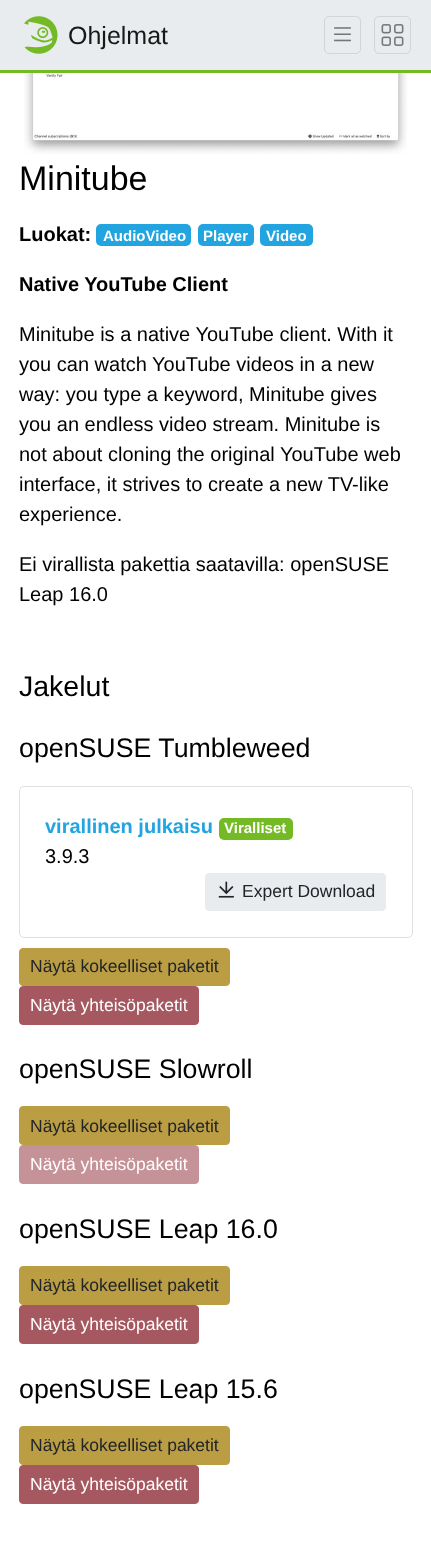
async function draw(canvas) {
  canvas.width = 431;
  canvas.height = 1551;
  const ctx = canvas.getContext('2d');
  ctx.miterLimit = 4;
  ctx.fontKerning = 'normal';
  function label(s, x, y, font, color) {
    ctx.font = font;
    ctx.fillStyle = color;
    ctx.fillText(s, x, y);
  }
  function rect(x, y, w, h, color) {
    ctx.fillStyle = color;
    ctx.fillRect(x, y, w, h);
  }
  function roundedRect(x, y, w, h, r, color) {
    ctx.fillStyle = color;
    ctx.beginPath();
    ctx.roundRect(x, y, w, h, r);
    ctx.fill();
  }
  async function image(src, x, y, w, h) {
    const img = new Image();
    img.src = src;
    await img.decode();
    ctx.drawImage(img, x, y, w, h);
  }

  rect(0, 0, 431, 1551, '#fff');
  rect(0, 0, 431, 70, '#e9ecef');
  rect(0, 70, 431, 3, '#73ba25');
  await image('assets/img1.png', 24, 16, 34, 38);
  label('Ohjelmat', 68, 44, '25px Liberation Sans', '#171818');
  ctx.beginPath();
  ctx.roundRect(324.5, 16.5, 36, 37, 4.5);
  ctx.strokeStyle = '#d2d4d7';
  ctx.stroke();
  await image('assets/img2.png', 334, 27, 17, 15);
  ctx.beginPath();
  ctx.roundRect(374.5, 16.5, 36, 37, 4.5);
  ctx.stroke();
  await image('assets/img3.png', 381, 24, 23, 22);
  await image('assets/img4.png', 24, 73, 383, 81);
  label('Minitube', 19, 190, '34px Liberation Sans', '#000');
  label('Luokat:', 19, 241, 'bold 20px Liberation Sans', '#000');
  roundedRect(96, 224, 95, 22, 5, '#21a4df');
  label('AudioVideo', 103, 241, 'bold 15px Liberation Sans', '#fff');
  roundedRect(198, 224, 56, 22, 5, '#21a4df');
  label('Player', 203, 241, 'bold 15px Liberation Sans', '#fff');
  roundedRect(260, 224, 53, 22, 5, '#21a4df');
  label('Video', 266, 241, 'bold 15px Liberation Sans', '#fff');
  label('Native YouTube Client', 19, 291, 'bold 20px Liberation Sans', '#000');
  label('Minitube is a native YouTube client. With it', 19, 341, '20px Liberation Sans', '#000');
  label('you can watch YouTube videos in a new', 19, 371, '20px Liberation Sans', '#000');
  label('way: you type a keyword, Minitube gives', 19, 401, '20px Liberation Sans', '#000');
  label('you an endless video stream. Minitube is', 19, 431, '20px Liberation Sans', '#000');
  label('not about cloning the original YouTube web', 19, 461, '20px Liberation Sans', '#000');
  label('interface, it strives to create a new TV-like', 19, 491, '20px Liberation Sans', '#000');
  label('experience.', 19, 521, '20px Liberation Sans', '#000');
  label('Ei virallista pakettia saatavilla: openSUSE', 19, 571, '20px Liberation Sans', '#000');
  label('Leap 16.0', 19, 601, '20px Liberation Sans', '#000');
  label('Jakelut', 19, 696, '28.5px Liberation Sans', '#000');
  label('openSUSE Tumbleweed', 19, 757, '26.75px Liberation Sans', '#000');
  ctx.beginPath();
  ctx.roundRect(19.5, 786.5, 393, 151, 4.5);
  ctx.strokeStyle = '#dfdfdf';
  ctx.stroke();
  label('virallinen julkaisu', 45, 833, 'bold 20px Liberation Sans', '#21a4df');
  roundedRect(219, 818, 74, 22, 5, '#73ba25');
  label('Viralliset', 224, 833, 'bold 15px Liberation Sans', '#fff');
  label('3.9.3', 45, 863, '20px Liberation Sans', '#000');
  ctx.fillStyle = '#e9ecef';
  ctx.beginPath();
  ctx.roundRect(205.5, 873.5, 180, 37, 3.5);
  ctx.fill();
  ctx.strokeStyle = '#e9ecef';
  ctx.stroke();
  await image('assets/img5.png', 218, 881, 16, 17);
  label('Expert Download', 242, 897, '17.5px Liberation Sans', '#212529');
  ctx.fillStyle = '#bb9d43';
  ctx.beginPath();
  ctx.roundRect(19.5, 948.5, 210, 37, 3.5);
  ctx.fill();
  ctx.strokeStyle = '#bb9d43';
  ctx.stroke();
  label('Näytä kokeelliset paketit', 30, 972, '17.5px Liberation Sans', '#212529');
  ctx.fillStyle = '#a55860';
  ctx.beginPath();
  ctx.roundRect(19.5, 986.5, 179, 38, 3.5);
  ctx.fill();
  ctx.strokeStyle = '#a55860';
  ctx.stroke();
  label('Näytä yhteisöpaketit', 30, 1011, '17.5px Liberation Sans', '#fff');
  label('openSUSE Slowroll', 19, 1078, '26.75px Liberation Sans', '#000');
  ctx.fillStyle = '#bb9d43';
  ctx.beginPath();
  ctx.roundRect(19.5, 1106.5, 210, 38, 3.5);
  ctx.fill();
  ctx.strokeStyle = '#bb9d43';
  ctx.stroke();
  label('Näytä kokeelliset paketit', 30, 1132, '17.5px Liberation Sans', '#212529');
  ctx.fillStyle = '#c59298';
  ctx.beginPath();
  ctx.roundRect(19.5, 1145.5, 179, 38, 3.5);
  ctx.fill();
  ctx.strokeStyle = '#c59298';
  ctx.stroke();
  label('Näytä yhteisöpaketit', 30, 1170, '17.5px Liberation Sans', '#fff');
  label('openSUSE Leap 16.0', 19, 1238, '26.75px Liberation Sans', '#000');
  ctx.fillStyle = '#bb9d43';
  ctx.beginPath();
  ctx.roundRect(19.5, 1266.5, 210, 38, 3.5);
  ctx.fill();
  ctx.strokeStyle = '#bb9d43';
  ctx.stroke();
  label('Näytä kokeelliset paketit', 30, 1291, '17.5px Liberation Sans', '#212529');
  ctx.fillStyle = '#a55860';
  ctx.beginPath();
  ctx.roundRect(19.5, 1305.5, 179, 38, 3.5);
  ctx.fill();
  ctx.strokeStyle = '#a55860';
  ctx.stroke();
  label('Näytä yhteisöpaketit', 30, 1330, '17.5px Liberation Sans', '#fff');
  label('openSUSE Leap 15.6', 19, 1398, '26.75px Liberation Sans', '#000');
  ctx.fillStyle = '#bb9d43';
  ctx.beginPath();
  ctx.roundRect(19.5, 1426.5, 210, 38, 3.5);
  ctx.fill();
  ctx.strokeStyle = '#bb9d43';
  ctx.stroke();
  label('Näytä kokeelliset paketit', 30, 1451, '17.5px Liberation Sans', '#212529');
  ctx.fillStyle = '#a55860';
  ctx.beginPath();
  ctx.roundRect(19.5, 1465.5, 179, 38, 3.5);
  ctx.fill();
  ctx.strokeStyle = '#a55860';
  ctx.stroke();
  label('Näytä yhteisöpaketit', 30, 1490, '17.5px Liberation Sans', '#fff');
}

draw(document.querySelector('canvas'));
